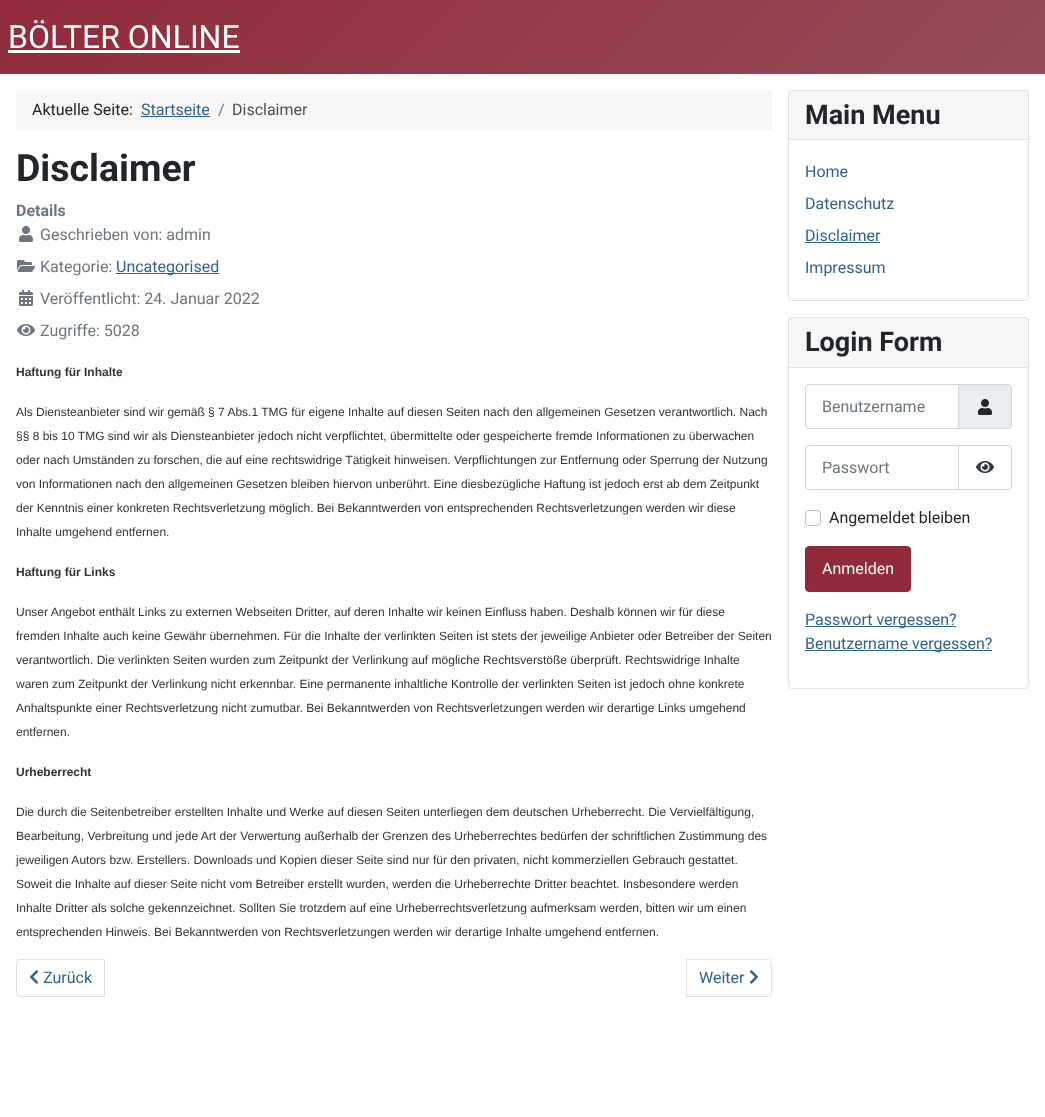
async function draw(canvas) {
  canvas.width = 1045;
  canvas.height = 1117;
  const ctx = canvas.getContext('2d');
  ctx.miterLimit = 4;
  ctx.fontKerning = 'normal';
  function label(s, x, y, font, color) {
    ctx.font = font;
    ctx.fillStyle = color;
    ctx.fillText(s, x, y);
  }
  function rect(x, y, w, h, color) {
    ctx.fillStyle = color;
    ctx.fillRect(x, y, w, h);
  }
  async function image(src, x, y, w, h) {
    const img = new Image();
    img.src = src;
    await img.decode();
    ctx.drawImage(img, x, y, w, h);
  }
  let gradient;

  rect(0, 0, 1045, 1117, '#fff');
  gradient = ctx.createLinearGradient(243, -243, 802, 317);
  gradient.addColorStop(0, '#912b3b');
  gradient.addColorStop(1, '#954b56');
  ctx.fillStyle = gradient;
  ctx.fillRect(0, 0, 1045, 74);
  label('BÖLTER ONLINE', 8, 48, '32px Roboto', '#fff');
  rect(8, 50, 232, 3, '#fff');
  rect(16, 90, 756, 40, '#f7f7f7');
  label('Aktuelle Seite:', 32, 115, '16px Roboto', '#22262a');
  label('Startseite', 141, 115, '16px Roboto', '#30638d');
  rect(141, 116, 69, 1, '#30638d');
  label('/', 218, 115, '16px Roboto', '#6d757e');
  label('Disclaimer', 232, 115, '16px Roboto', '#484f56');
  label('Disclaimer', 16, 181, 'bold 37.5px Roboto', '#22262a');
  label('Details', 16, 216, 'bold 16px Roboto', '#6d757e');
  await image('assets/img1.png', 19, 226, 14, 16);
  label('Geschrieben von: admin', 40, 240, '16px Roboto', '#6d757e');
  await image('assets/img2.png', 17, 260, 18, 12);
  label('Kategorie:', 40, 272, '16px Roboto', '#6d757e');
  rect(116, 273, 103, 1, '#30638d');
  label('Uncategorised', 116, 272, '16px Roboto', '#30638d');
  await image('assets/img3.png', 19, 290, 14, 16);
  label('Veröffentlicht: 24. Januar 2022', 40, 304, '16px Roboto', '#6d757e');
  await image('assets/img4.png', 17, 324, 18, 12);
  label('Zugriffe: 5028', 40, 336, '16px Roboto', '#6d757e');
  label('Haftung für Inhalte', 16, 376, 'bold 12px Liberation Sans', '#333');
  label('Als Diensteanbieter sind wir gemäß § 7 Abs.1 TMG für eigene Inhalte auf diesen Seiten nach den allgemeinen Gesetzen verantwortlich. Nach', 16, 416, '12px Liberation Sans', '#333');
  label('§§ 8 bis 10 TMG sind wir als Diensteanbieter jedoch nicht verpflichtet, übermittelte oder gespeicherte fremde Informationen zu überwachen', 16, 440, '12px Liberation Sans', '#333');
  label('oder nach Umständen zu forschen, die auf eine rechtswidrige Tätigkeit hinweisen. Verpflichtungen zur Entfernung oder Sperrung der Nutzung', 16, 464, '12px Liberation Sans', '#333');
  label('von Informationen nach den allgemeinen Gesetzen bleiben hiervon unberührt. Eine diesbezügliche Haftung ist jedoch erst ab dem Zeitpunkt', 16, 488, '12px Liberation Sans', '#333');
  label('der Kenntnis einer konkreten Rechtsverletzung möglich. Bei Bekanntwerden von entsprechenden Rechtsverletzungen werden wir diese', 16, 512, '12px Liberation Sans', '#333');
  label('Inhalte umgehend entfernen.', 16, 536, '12px Liberation Sans', '#333');
  label('Haftung für Links', 16, 576, 'bold 12px Liberation Sans', '#333');
  label('Unser Angebot enthält Links zu externen Webseiten Dritter, auf deren Inhalte wir keinen Einfluss haben. Deshalb können wir für diese', 16, 616, '12px Liberation Sans', '#333');
  label('fremden Inhalte auch keine Gewähr übernehmen. Für die Inhalte der verlinkten Seiten ist stets der jeweilige Anbieter oder Betreiber der Seiten', 16, 640, '12px Liberation Sans', '#333');
  label('verantwortlich. Die verlinkten Seiten wurden zum Zeitpunkt der Verlinkung auf mögliche Rechtsverstöße überprüft. Rechtswidrige Inhalte', 16, 664, '12px Liberation Sans', '#333');
  label('waren zum Zeitpunkt der Verlinkung nicht erkennbar. Eine permanente inhaltliche Kontrolle der verlinkten Seiten ist jedoch ohne konkrete', 16, 688, '12px Liberation Sans', '#333');
  label('Anhaltspunkte einer Rechtsverletzung nicht zumutbar. Bei Bekanntwerden von Rechtsverletzungen werden wir derartige Links umgehend', 16, 712, '12px Liberation Sans', '#333');
  label('entfernen.', 16, 736, '12px Liberation Sans', '#333');
  label('Urheberrecht', 16, 776, 'bold 12px Liberation Sans', '#333');
  label('Die durch die Seitenbetreiber erstellten Inhalte und Werke auf diesen Seiten unterliegen dem deutschen Urheberrecht. Die Vervielfältigung,', 16, 816, '12px Liberation Sans', '#333');
  label('Bearbeitung, Verbreitung und jede Art der Verwertung außerhalb der Grenzen des Urheberrechtes bedürfen der schriftlichen Zustimmung des', 16, 840, '12px Liberation Sans', '#333');
  label('jeweiligen Autors bzw. Erstellers. Downloads und Kopien dieser Seite sind nur für den privaten, nicht kommerziellen Gebrauch gestattet.', 16, 864, '12px Liberation Sans', '#333');
  label('Soweit die Inhalte auf dieser Seite nicht vom Betreiber erstellt wurden, werden die Urheberrechte Dritter beachtet. Insbesondere werden', 16, 888, '12px Liberation Sans', '#333');
  label('Inhalte Dritter als solche gekennzeichnet. Sollten Sie trotzdem auf eine Urheberrechtsverletzung aufmerksam werden, bitten wir um einen', 16, 912, '12px Liberation Sans', '#333');
  label('entsprechenden Hinweis. Bei Bekanntwerden von Rechtsverletzungen werden wir derartige Inhalte umgehend entfernen.', 16, 936, '12px Liberation Sans', '#333');
  ctx.beginPath();
  ctx.roundRect(16.5, 959.5, 88, 37, [3.5, 0, 0, 3.5]);
  ctx.strokeStyle = '#dfe3e7';
  ctx.stroke();
  await image('assets/img5.png', 29, 970, 10, 14);
  label('Zurück', 43, 983, '16px Roboto', '#30638d');
  ctx.beginPath();
  ctx.roundRect(686.5, 959.5, 85, 37, [0, 3.5, 3.5, 0]);
  ctx.stroke();
  label('Weiter', 699, 983, '16px Roboto', '#30638d');
  await image('assets/img6.png', 749, 970, 10, 14);
  ctx.beginPath();
  ctx.roundRect(788.5, 90.5, 240, 210, 3.5);
  ctx.stroke();
  rect(789, 91, 239, 48, '#00000008');
  rect(789, 139, 239, 1, '#dfe3e7');
  label('Main Menu', 805, 124, 'bold 27px Roboto', '#22262a');
  label('Home', 805, 177, '16px Roboto', '#30638d');
  label('Datenschutz', 805, 209, '16px Roboto', '#30638d');
  label('Disclaimer', 805, 241, '16px Roboto', '#30638d');
  rect(805, 242, 75, 1, '#30638d');
  label('Impressum', 805, 273, '16px Roboto', '#30638d');
  ctx.beginPath();
  ctx.roundRect(788.5, 317.5, 240, 371, 3.5);
  ctx.stroke();
  rect(789, 318, 239, 49, '#00000008');
  rect(789, 367, 239, 1, '#dfe3e7');
  label('Login Form', 805, 351, 'bold 27px Roboto', '#22262a');
  ctx.fillStyle = '#eaedf0';
  ctx.beginPath();
  ctx.roundRect(958.5, 384.5, 53, 44, [0, 3.5, 3.5, 0]);
  ctx.fill();
  ctx.strokeStyle = '#ced4da';
  ctx.stroke();
  ctx.beginPath();
  ctx.roundRect(805.5, 384.5, 153, 44, [3.5, 0, 0, 3.5]);
  ctx.stroke();
  label('Benutzername', 822, 412, '16px Roboto', '#6d757e');
  await image('assets/img7.png', 978, 399, 14, 16);
  ctx.beginPath();
  ctx.roundRect(805.5, 445.5, 153, 44, [3.5, 0, 0, 3.5]);
  ctx.stroke();
  label('Passwort', 822, 473, '16px Roboto', '#6d757e');
  ctx.fillStyle = '#fff';
  ctx.beginPath();
  ctx.roundRect(958.5, 445.5, 53, 44, [0, 3.5, 3.5, 0]);
  ctx.fill();
  ctx.stroke();
  await image('assets/img8.png', 976, 461, 18, 12);
  ctx.beginPath();
  ctx.roundRect(805.5, 510.5, 15, 15, 3.5);
  ctx.strokeStyle = '#bfbfbf';
  ctx.stroke();
  label('Angemeldet bleiben', 829, 523, '16px Roboto', '#22262a');
  ctx.fillStyle = '#912b3b';
  ctx.beginPath();
  ctx.roundRect(805.5, 546.5, 105, 45, 3.5);
  ctx.fill();
  ctx.strokeStyle = '#912b3b';
  ctx.stroke();
  label('Anmelden', 822, 574, '16px Roboto', '#fff');
  rect(805, 626, 151, 1, '#30638d');
  label('Passwort vergessen?', 805, 625, '16px Roboto', '#30638d');
  rect(805, 650, 187, 1, '#30638d');
  label('Benutzername vergessen?', 805, 649, '16px Roboto', '#30638d');
}

draw(document.querySelector('canvas'));
